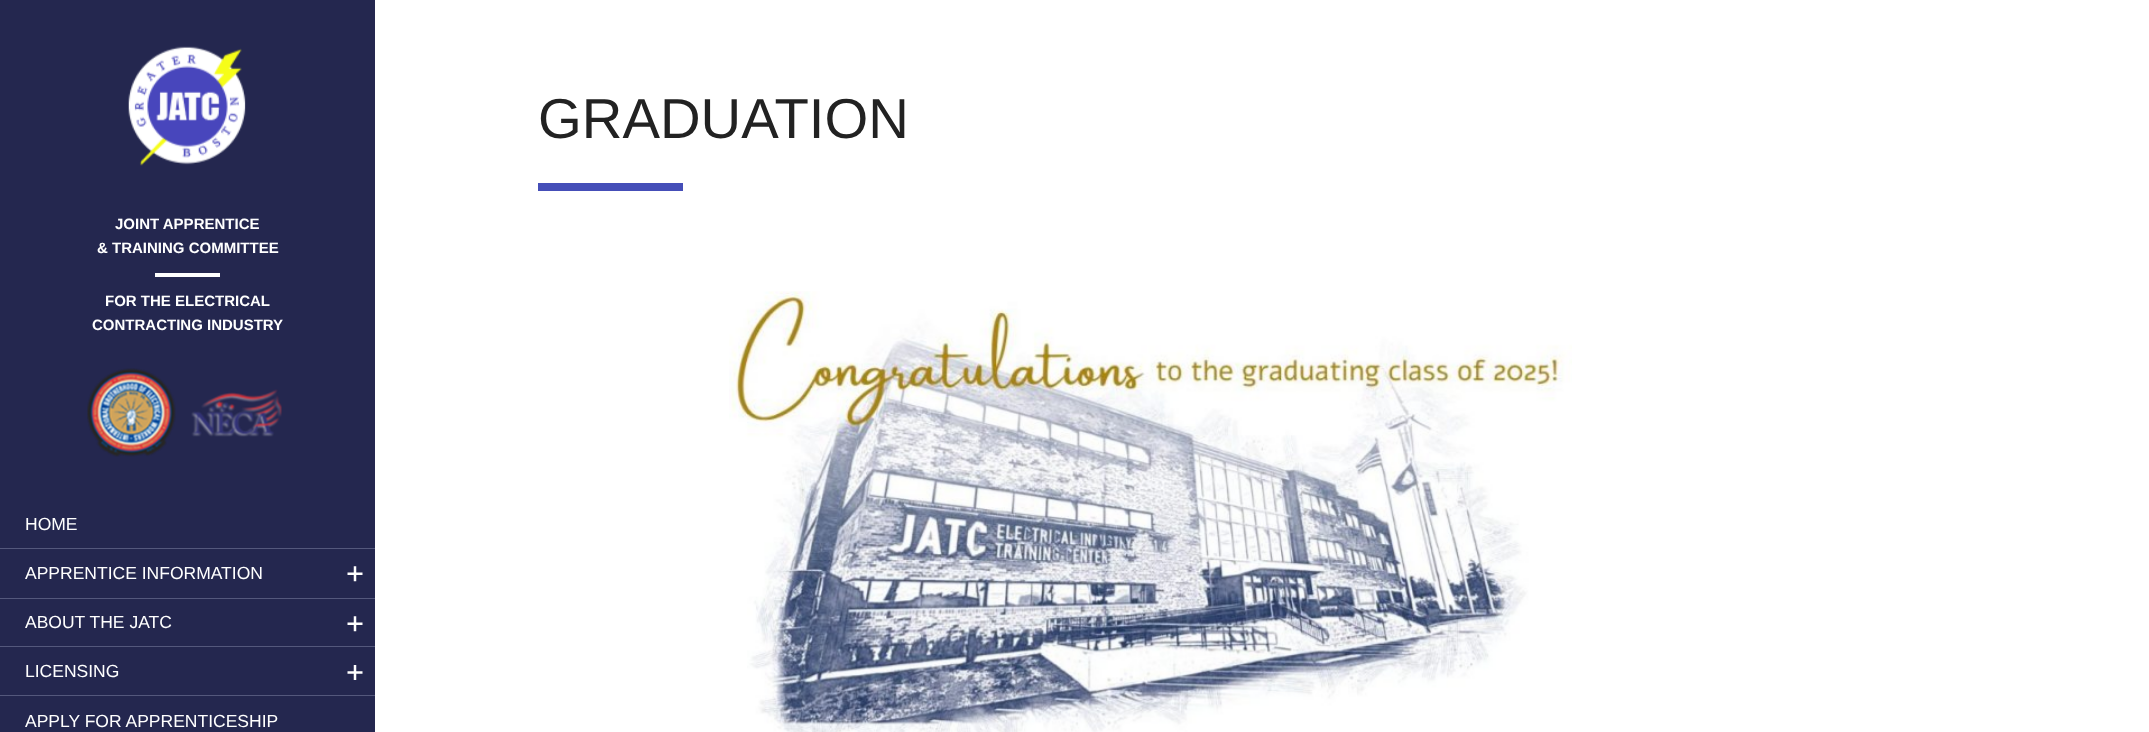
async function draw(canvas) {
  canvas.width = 2149;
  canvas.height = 732;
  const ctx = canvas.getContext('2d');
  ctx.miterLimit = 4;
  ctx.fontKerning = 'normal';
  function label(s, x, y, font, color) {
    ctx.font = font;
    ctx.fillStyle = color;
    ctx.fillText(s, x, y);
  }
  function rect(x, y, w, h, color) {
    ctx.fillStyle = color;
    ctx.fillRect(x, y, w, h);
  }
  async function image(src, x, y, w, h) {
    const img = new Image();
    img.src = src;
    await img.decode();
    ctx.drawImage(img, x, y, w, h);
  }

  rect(0, 0, 2149, 732, '#fff');
  label('GRADUATION', 538, 138, '56.25px Liberation Sans', '#222');
  rect(538, 183, 145, 8, '#454eb8');
  await image('assets/img1.png', 729, 291, 843, 441);
  rect(0, 0, 375, 732, '#24274f');
  await image('assets/img2.png', 128, 46, 118, 120);
  label('JOINT APPRENTICE', 115, 229, 'bold 15px Liberation Sans', '#fff');
  label('& TRAINING COMMITTEE', 97, 253, 'bold 15px Liberation Sans', '#fff');
  rect(155, 273, 65, 4, '#fff');
  label('FOR THE ELECTRICAL', 105, 306, 'bold 15px Liberation Sans', '#fff');
  label('CONTRACTING INDUSTRY', 92, 330, 'bold 15px Liberation Sans', '#fff');
  await image('assets/img3.png', 87, 368, 89, 89);
  await image('assets/img4.png', 191, 389, 91, 48);
  rect(0, 548, 375, 1, '#54587c');
  label('HOME', 25, 530, '17.5px Liberation Sans', '#fff');
  rect(0, 598, 375, 1, '#54587c');
  label('APPRENTICE INFORMATION', 25, 579, '17.5px Liberation Sans', '#fff');
  await image('assets/img5.png', 347, 566, 16, 16);
  rect(0, 646, 375, 1, '#54587c');
  label('ABOUT THE JATC', 25, 628, '17.5px Liberation Sans', '#fff');
  await image('assets/img5.png', 347, 616, 16, 16);
  rect(0, 695, 375, 1, '#54587c');
  label('LICENSING', 25, 677, '17.5px Liberation Sans', '#fff');
  await image('assets/img6.png', 347, 665, 16, 15);
  label('APPLY FOR APPRENTICESHIP', 25, 727, '17.5px Liberation Sans', '#fff');
}

draw(document.querySelector('canvas'));
